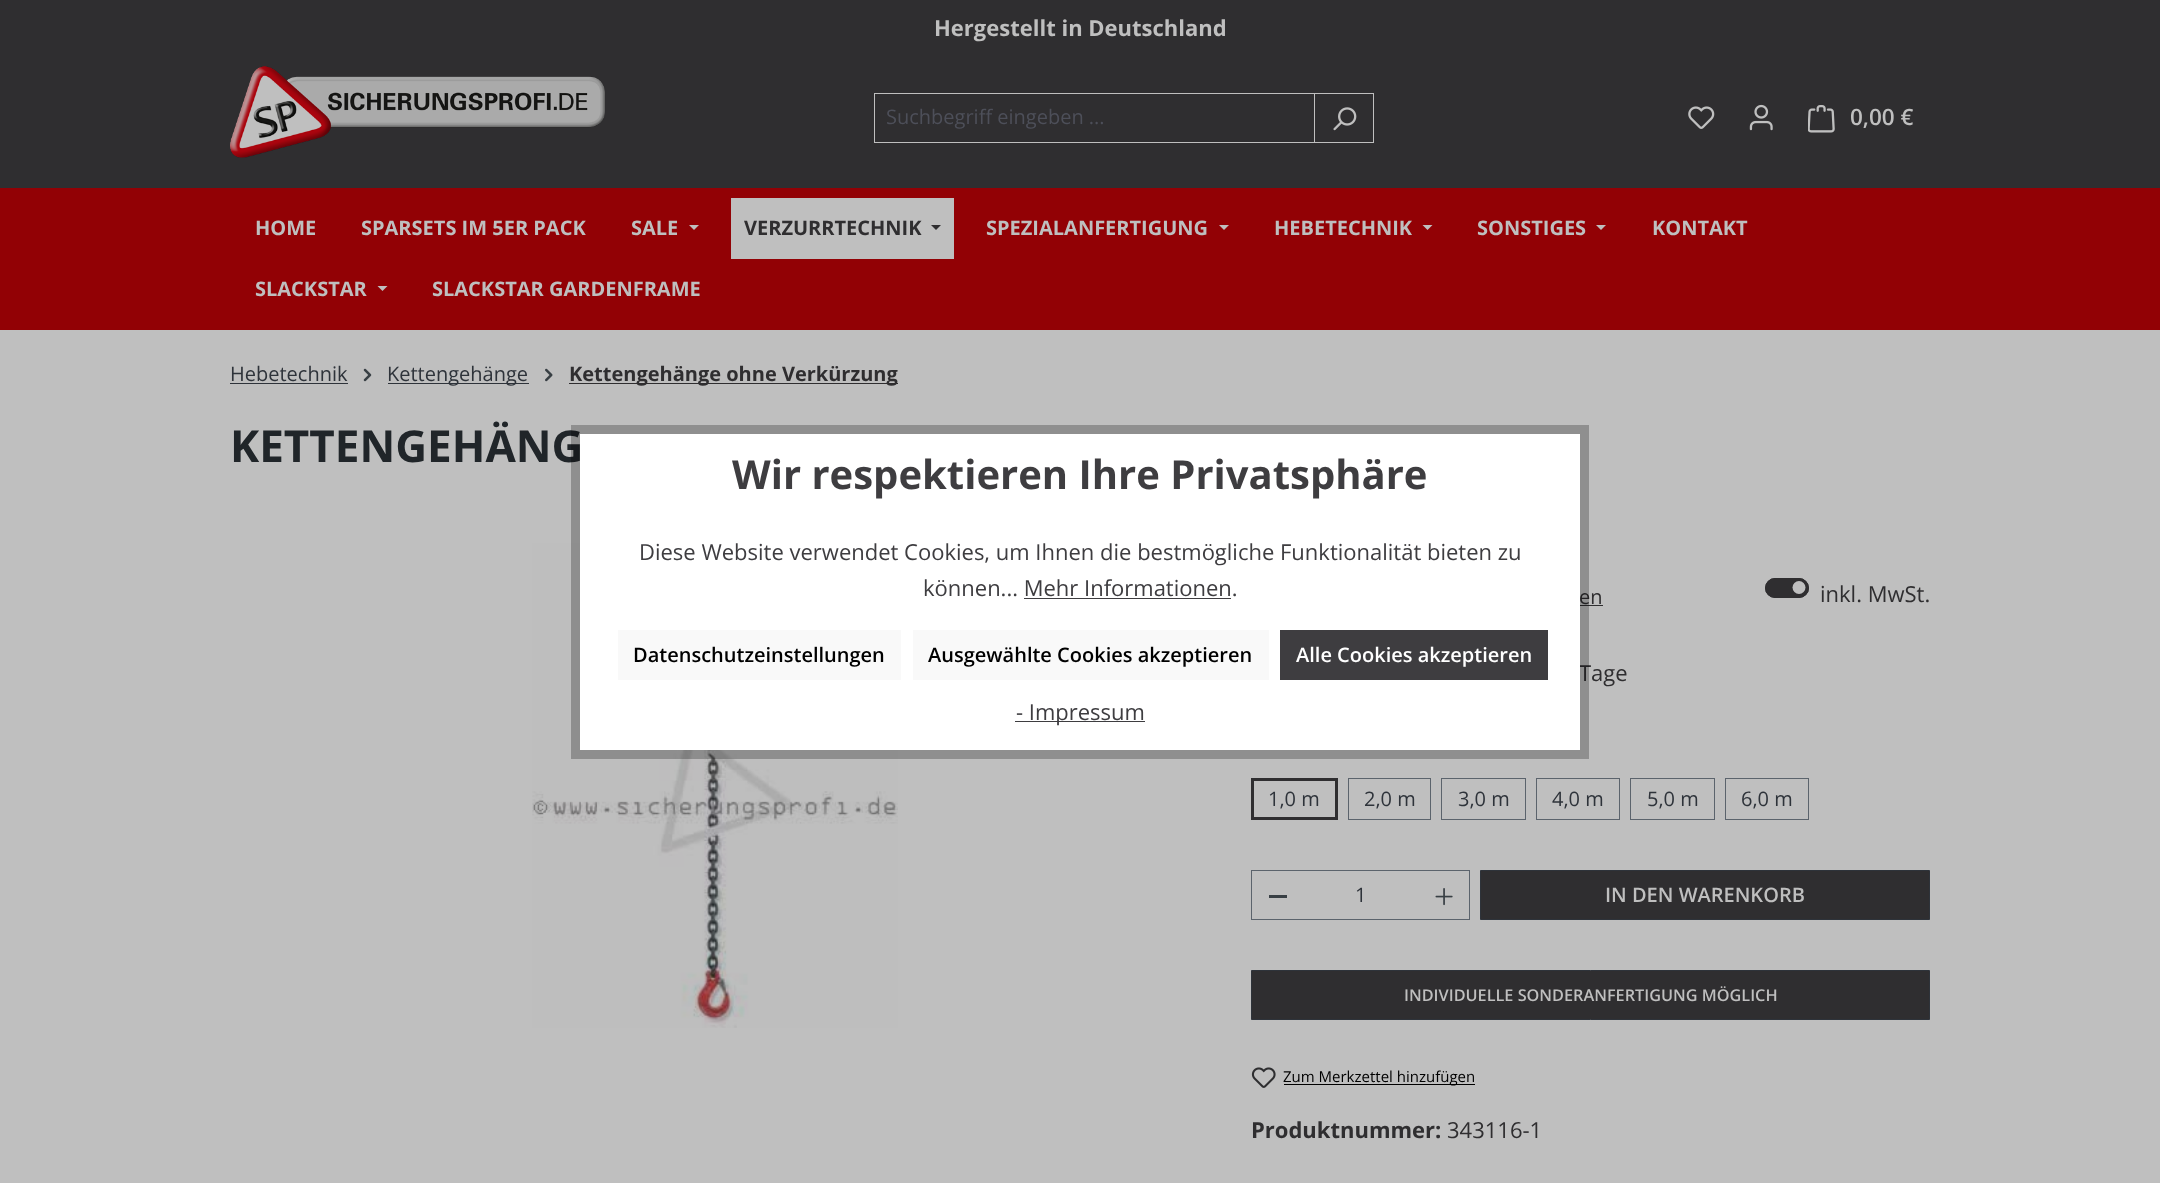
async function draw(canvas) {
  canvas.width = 2160;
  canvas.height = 1183;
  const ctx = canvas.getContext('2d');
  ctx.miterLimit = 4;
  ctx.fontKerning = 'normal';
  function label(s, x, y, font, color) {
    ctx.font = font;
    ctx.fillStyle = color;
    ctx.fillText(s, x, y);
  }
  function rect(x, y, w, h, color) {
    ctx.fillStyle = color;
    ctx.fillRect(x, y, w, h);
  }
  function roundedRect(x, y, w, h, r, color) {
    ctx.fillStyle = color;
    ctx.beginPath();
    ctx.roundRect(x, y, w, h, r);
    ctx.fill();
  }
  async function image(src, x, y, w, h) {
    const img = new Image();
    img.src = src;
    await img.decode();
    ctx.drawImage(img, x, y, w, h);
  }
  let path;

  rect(0, 0, 2160, 1183, '#bfbfbf');
  rect(0, 0, 2160, 188, '#2f2e30');
  label('Hergestellt in Deutschland', 934, 36, 'bold 22px Open Sans', '#bfbfbf');
  await image('assets/img1.png', 230, 66, 375, 92);
  ctx.strokeStyle = '#bfbfbf';
  ctx.strokeRect(874.5, 93.5, 440, 49);
  label('Suchbegriff eingeben ...', 886, 124, '20px Open Sans', '#4d4f59');
  ctx.strokeRect(1314.5, 93.5, 59, 49);
  await image('assets/img2.png', 1333, 107, 24, 24);
  await image('assets/img3.png', 1688, 106, 27, 23);
  await image('assets/img4.png', 1749, 104, 24, 27);
  await image('assets/img5.png', 1808, 105, 27, 28);
  label('0,00 €', 1850, 125, '600 22.5px Open Sans', '#bfbfbf');
  rect(0, 188, 2160, 142, '#920105');
  label('HOME', 255, 235, 'bold 20px Open Sans', '#bfbfbf');
  label('SPARSETS IM 5ER PACK', 361, 235, 'bold 20px Open Sans', '#bfbfbf');
  label('SALE', 631, 235, 'bold 20px Open Sans', '#bfbfbf');
  path = new Path2D('M689 225H699L694 230Z');
  ctx.fill(path);
  rect(731, 198, 223, 61, '#bfbfbf');
  label('VERZURRTECHNIK', 744, 235, 'bold 20px Open Sans', '#2f2e30');
  path = new Path2D('M931 225H941L936 230Z');
  ctx.fill(path);
  label('SPEZIALANFERTIGUNG', 986, 235, 'bold 20px Open Sans', '#bfbfbf');
  path = new Path2D('M1219 225H1229L1224 230Z');
  ctx.fill(path);
  label('HEBETECHNIK', 1274, 235, 'bold 20px Open Sans', '#bfbfbf');
  path = new Path2D('M1422.5 225H1432.5L1427.5 230Z');
  ctx.fill(path);
  label('SONSTIGES', 1477, 235, 'bold 20px Open Sans', '#bfbfbf');
  path = new Path2D('M1596 225H1606L1601 230Z');
  ctx.fill(path);
  label('KONTAKT', 1652, 235, 'bold 20px Open Sans', '#bfbfbf');
  label('SLACKSTAR', 255, 296, 'bold 20px Open Sans', '#bfbfbf');
  path = new Path2D('M377.5 286H387.5L382.5 291Z');
  ctx.fill(path);
  label('SLACKSTAR GARDENFRAME', 432, 296, 'bold 20px Open Sans', '#bfbfbf');
  label('Hebetechnik', 230, 381, '20px Open Sans', '#2e333a');
  rect(230, 383, 118, 1, '#2e333a');
  await image('assets/img6.png', 363, 368, 9, 14);
  rect(388, 383, 141, 1, '#2e333a');
  label('Kettengehänge', 387, 381, '20px Open Sans', '#2e333a');
  await image('assets/img7.png', 545, 368, 8, 14);
  rect(569, 383, 329, 1, '#2f2e30');
  label('Kettengehänge ohne Verkürzung', 569, 381, 'bold 20px Open Sans', '#2f2e30');
  label('KETTENGEHÄNG', 230, 462, 'bold 44px Open Sans', '#202529');
  await image('assets/img8.png', 532, 543, 366, 485);
  label('en', 1579, 604, '20px Open Sans', '#2f2e30');
  rect(1580, 605, 23, 1, '#2f2e30');
  roundedRect(1765, 578, 44, 20, 10, '#2f2e30');
  ctx.fillStyle = '#bfbfbf';
  ctx.beginPath();
  ctx.arc(1799, 587.5, 6.5, 0, 2 * Math.PI);
  ctx.fill();
  ctx.beginPath();
  ctx.roundRect(1765.5, 578.5, 43, 19, 9.5);
  ctx.strokeStyle = '#2f2e30';
  ctx.stroke();
  label('inkl. MwSt.', 1820, 602, '22px Open Sans', '#2f2e30');
  label('Tage', 1579, 681, '22px Open Sans', '#2f2e30');
  ctx.lineWidth = 3;
  ctx.strokeRect(1252.5, 779.5, 84, 39);
  label('1,0 m', 1268, 806, '20px Open Sans', '#2e333a');
  ctx.strokeStyle = '#5b636c';
  ctx.lineWidth = 1;
  ctx.strokeRect(1348.5, 778.5, 82, 41);
  label('2,0 m', 1364, 806, '20px Open Sans', '#2e333a');
  ctx.strokeRect(1441.5, 778.5, 84, 41);
  label('3,0 m', 1458, 806, '20px Open Sans', '#2e333a');
  ctx.strokeRect(1536.5, 778.5, 83, 41);
  label('4,0 m', 1552, 806, '20px Open Sans', '#2e333a');
  ctx.strokeRect(1630.5, 778.5, 84, 41);
  label('5,0 m', 1647, 806, '20px Open Sans', '#2e333a');
  ctx.strokeRect(1725.5, 778.5, 83, 41);
  label('6,0 m', 1741, 806, '20px Open Sans', '#2e333a');
  rect(1251, 870, 219, 1, '#5b636c');
  rect(1251, 919, 169, 1, '#5b636c');
  rect(1251, 870, 1, 50, '#5b636c');
  rect(1269, 895, 18, 3, '#383f44');
  label('1', 1355, 902, '20px Open Sans', '#2e333a');
  rect(1469, 870, 1, 50, '#5b636c');
  rect(1419, 919, 51, 1, '#5b636c');
  await image('assets/img9.png', 1435, 888, 18, 18);
  ctx.fillStyle = '#2f2e30';
  ctx.beginPath();
  ctx.rect(1480.5, 870.5, 449, 49);
  ctx.fill();
  ctx.strokeStyle = '#2e333a';
  ctx.stroke();
  label('IN DEN WARENKORB', 1605, 902, '600 20px Open Sans', '#bfbfbf');
  ctx.fillStyle = '#2f2e30';
  ctx.beginPath();
  ctx.rect(1251.5, 970.5, 678, 49);
  ctx.fill();
  ctx.stroke();
  label('INDIVIDUELLE SONDERANFERTIGUNG MÖGLICH', 1404, 1001, '600 16.25px Open Sans', '#bfbfbf');
  await image('assets/img10.png', 1251, 1067, 25, 21);
  rect(1284, 1084, 191, 1, '#000');
  label('Zum Merkzettel hinzufügen', 1283, 1082, '15px Open Sans', '#000');
  label('Produktnummer:', 1251, 1138, 'bold 22px Open Sans', '#2f2e30');
  label('343116-1', 1447, 1138, '22px Open Sans', '#2f2e30');
  ctx.strokeStyle = '#00000040';
  ctx.lineWidth = 9;
  ctx.strokeRect(575.5, 429.5, 1009, 325);
  rect(580, 434, 1000, 316, '#fff');
  label('Wir respektieren Ihre Privatsphäre', 732, 489, 'bold 40px Open Sans', '#3e3d40');
  label('Diese Website verwendet Cookies, um Ihnen die bestmögliche Funktionalität bieten zu', 639, 560, '22px Open Sans', '#3e3d40');
  label('können... Mehr Informationen.', 923, 596, '22px Open Sans', '#3e3d40');
  rect(1024, 598, 207, 1, '#3e3d40');
  rect(618, 630, 283, 50, '#f9f9f9');
  label('Datenschutzeinstellungen', 633, 662, '600 20px Open Sans', '#000');
  rect(913, 630, 356, 50, '#f9f9f9');
  label('Ausgewählte Cookies akzeptieren', 928, 662, '600 20px Open Sans', '#000');
  rect(1280, 630, 268, 50, '#3e3d40');
  label('Alle Cookies akzeptieren', 1296, 662, '600 20px Open Sans', '#fff');
  rect(1015, 721, 130, 1, '#3e3d40');
  label('- Impressum', 1016, 720, '22px Open Sans', '#3e3d40');
}

draw(document.querySelector('canvas'));
